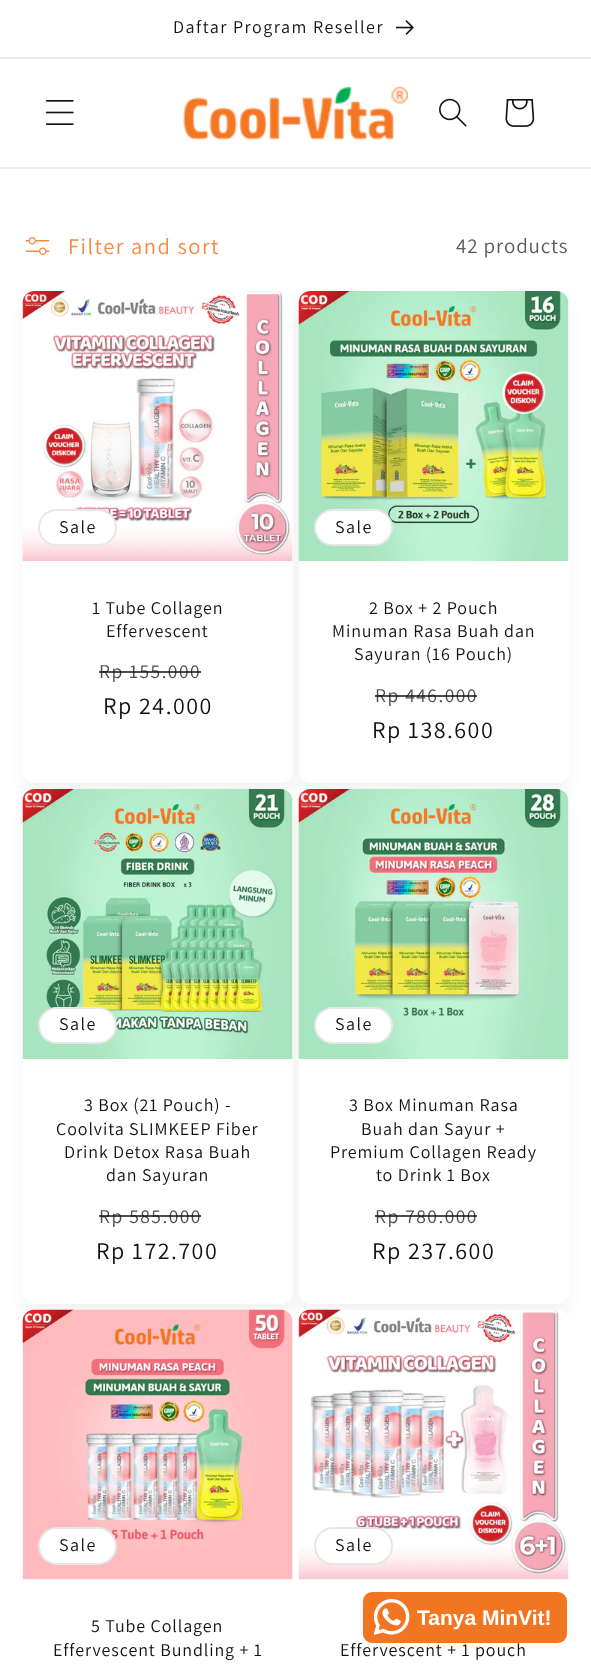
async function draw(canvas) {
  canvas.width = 591;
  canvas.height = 1671;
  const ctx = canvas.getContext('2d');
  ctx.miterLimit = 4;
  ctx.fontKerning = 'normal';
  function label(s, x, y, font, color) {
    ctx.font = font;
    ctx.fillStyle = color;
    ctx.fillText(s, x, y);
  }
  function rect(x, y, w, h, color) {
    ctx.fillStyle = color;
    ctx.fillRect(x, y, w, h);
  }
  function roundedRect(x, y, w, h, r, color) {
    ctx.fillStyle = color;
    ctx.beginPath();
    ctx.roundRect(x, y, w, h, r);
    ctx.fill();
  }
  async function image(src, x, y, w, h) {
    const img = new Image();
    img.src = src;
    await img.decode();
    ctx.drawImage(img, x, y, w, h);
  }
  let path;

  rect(0, 0, 591, 1671, '#fff');
  rect(0, 57, 591, 2, '#ececec');
  ctx.letterSpacing = '1.5px';
  label('Daftar Program Reseller', 173, 33, '18px Assistant', '#121212');
  await image('assets/img1.png', 396, 20, 18, 15);
  rect(0, 167, 591, 2, '#ececec');
  await image('assets/img2.png', 45, 100, 29, 25);
  await image('assets/img3.png', 183, 86, 225, 54);
  await image('assets/img4.png', 439, 98, 28, 29);
  await image('assets/img5.png', 505, 99, 30, 28);
  await image('assets/img6.png', 25, 237, 25, 18);
  label('Filter and sort', 68, 254, '22.5px Assistant', '#f48a43');
  ctx.letterSpacing = '0.9px';
  label('42 products', 456, 253, '21px Assistant', '#595959');
  ctx.save();
  path = new Path2D('M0 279H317V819H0ZM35 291H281C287.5 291 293 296.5 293 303V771C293 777.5 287.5 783 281 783H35C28.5 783 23 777.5 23 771V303C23 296.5 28.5 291 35 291Z');
  ctx.clip(path, 'evenodd');
  ctx.fillStyle = '#1212120d';
  ctx.filter = 'blur(7.5px)';
  ctx.beginPath();
  ctx.roundRect(23, 303, 270, 492, 12);
  ctx.fill();
  ctx.filter = 'none';
  ctx.restore();
  await image('assets/img7.png', 22, 291, 271, 270);
  roundedRect(38, 509, 79, 37, 18.5, '#fff');
  ctx.beginPath();
  ctx.roundRect(39, 510, 77, 35, 17.5);
  ctx.strokeStyle = '#1212121a';
  ctx.lineWidth = 2;
  ctx.stroke();
  ctx.letterSpacing = '1.5px';
  label('Sale', 59, 533, '18px Assistant', '#121212');
  ctx.letterSpacing = '0.9px';
  label('1 Tube Collagen', 92, 614, '18px Assistant', '#121212');
  label('Effervescent', 106, 637, '18px Assistant', '#121212');
  ctx.letterSpacing = '1.5px';
  label('Rp 155.000', 99, 678, '19.5px Assistant', '#4d4d4d');
  rect(99, 671, 102, 2, '#121212bf');
  label('Rp 24.000', 103, 714, '24px Assistant', '#121212');
  ctx.save();
  path = new Path2D('M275 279H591V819H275ZM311 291H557C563.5 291 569 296.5 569 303V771C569 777.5 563.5 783 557 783H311C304.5 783 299 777.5 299 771V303C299 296.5 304.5 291 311 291Z');
  ctx.clip(path, 'evenodd');
  ctx.fillStyle = '#1212120d';
  ctx.filter = 'blur(7.5px)';
  ctx.beginPath();
  ctx.roundRect(299, 303, 270, 492, 12);
  ctx.fill();
  ctx.filter = 'none';
  ctx.restore();
  await image('assets/img8.png', 298, 291, 271, 270);
  roundedRect(314, 509, 79, 37, 18.5, '#fff');
  ctx.beginPath();
  ctx.roundRect(315, 510, 77, 35, 17.5);
  ctx.stroke();
  label('Sale', 335, 533, '18px Assistant', '#121212');
  ctx.letterSpacing = '0.9px';
  label('2 Box + 2 Pouch', 369, 614, '18px Assistant', '#121212');
  label('Minuman Rasa Buah dan', 332, 637, '18px Assistant', '#121212');
  label('Sayuran (16 Pouch)', 354, 660, '18px Assistant', '#121212');
  ctx.letterSpacing = '1.5px';
  label('Rp 446.000', 375, 702, '19.5px Assistant', '#4d4d4d');
  rect(375, 695, 102, 2, '#121212bf');
  label('Rp 138.600', 372, 738, '24px Assistant', '#121212');
  roundedRect(23, 789, 270, 515, 12, '#fff');
  ctx.save();
  path = new Path2D('M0 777H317V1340H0ZM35 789H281C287.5 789 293 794.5 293 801V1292C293 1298.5 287.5 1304 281 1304H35C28.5 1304 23 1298.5 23 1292V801C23 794.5 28.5 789 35 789Z');
  ctx.clip(path, 'evenodd');
  ctx.fillStyle = '#1212120d';
  ctx.filter = 'blur(7.5px)';
  ctx.beginPath();
  ctx.roundRect(23, 801, 270, 515, 12);
  ctx.fill();
  ctx.filter = 'none';
  ctx.restore();
  await image('assets/img9.png', 22, 789, 271, 270);
  roundedRect(38, 1007, 79, 37, 18.5, '#fff');
  ctx.beginPath();
  ctx.roundRect(39, 1008, 77, 35, 17.5);
  ctx.stroke();
  label('Sale', 59, 1030, '18px Assistant', '#121212');
  ctx.letterSpacing = '0.9px';
  label('3 Box (21 Pouch) -', 84, 1111, '18px Assistant', '#121212');
  label('Coolvita SLIMKEEP Fiber', 56, 1135, '18px Assistant', '#121212');
  label('Drink Detox Rasa Buah', 64, 1158, '18px Assistant', '#121212');
  label('dan Sayuran', 106, 1181, '18px Assistant', '#121212');
  ctx.letterSpacing = '1.5px';
  label('Rp 585.000', 99, 1223, '19.5px Assistant', '#4d4d4d');
  rect(99, 1215, 102, 2, '#121212bf');
  label('Rp 172.700', 96, 1259, '24px Assistant', '#121212');
  roundedRect(299, 789, 270, 515, 12, '#fff');
  ctx.save();
  path = new Path2D('M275 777H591V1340H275ZM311 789H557C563.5 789 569 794.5 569 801V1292C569 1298.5 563.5 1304 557 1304H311C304.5 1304 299 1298.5 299 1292V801C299 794.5 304.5 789 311 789Z');
  ctx.clip(path, 'evenodd');
  ctx.fillStyle = '#1212120d';
  ctx.filter = 'blur(7.5px)';
  ctx.beginPath();
  ctx.roundRect(299, 801, 270, 515, 12);
  ctx.fill();
  ctx.filter = 'none';
  ctx.restore();
  await image('assets/img10.png', 298, 789, 271, 270);
  roundedRect(314, 1007, 79, 37, 18.5, '#fff');
  ctx.beginPath();
  ctx.roundRect(315, 1008, 77, 35, 17.5);
  ctx.stroke();
  label('Sale', 335, 1030, '18px Assistant', '#121212');
  ctx.letterSpacing = '0.9px';
  label('3 Box Minuman Rasa', 349, 1111, '18px Assistant', '#121212');
  label('Buah dan Sayur +', 361, 1135, '18px Assistant', '#121212');
  label('Premium Collagen Ready', 330, 1158, '18px Assistant', '#121212');
  label('to Drink 1 Box', 376, 1181, '18px Assistant', '#121212');
  ctx.letterSpacing = '1.5px';
  label('Rp 780.000', 375, 1223, '19.5px Assistant', '#4d4d4d');
  rect(375, 1215, 102, 2, '#121212bf');
  label('Rp 237.600', 372, 1259, '24px Assistant', '#121212');
  roundedRect(23, 1310, 270, 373, 12, '#fff');
  await image('assets/img11.png', 22, 1309, 271, 271);
  roundedRect(38, 1527, 79, 38, 19, '#fff');
  ctx.beginPath();
  ctx.roundRect(39, 1528, 77, 36, 18);
  ctx.stroke();
  label('Sale', 59, 1551, '18px Assistant', '#121212');
  ctx.letterSpacing = '0.9px';
  label('5 Tube Collagen', 91, 1632, '18px Assistant', '#121212');
  label('Effervescent Bundling + 1', 53, 1656, '18px Assistant', '#121212');
  roundedRect(299, 1310, 270, 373, 12, '#fff');
  await image('assets/img12.png', 298, 1309, 271, 271);
  roundedRect(314, 1527, 79, 38, 19, '#fff');
  ctx.beginPath();
  ctx.roundRect(315, 1528, 77, 36, 18);
  ctx.stroke();
  ctx.letterSpacing = '1.5px';
  label('Sale', 335, 1551, '18px Assistant', '#121212');
  ctx.letterSpacing = '0.9px';
  label('Effervescent + 1 pouch', 340, 1656, '18px Assistant', '#121212');
  roundedRect(363, 1592, 204, 51, 9, '#f27522');
  await image('assets/img13.png', 374, 1599, 36, 36);
  ctx.letterSpacing = '0px';
  label('Tanya MinVit!', 417, 1625, 'bold 21px Liberation Sans', '#fff');
}

draw(document.querySelector('canvas'));
